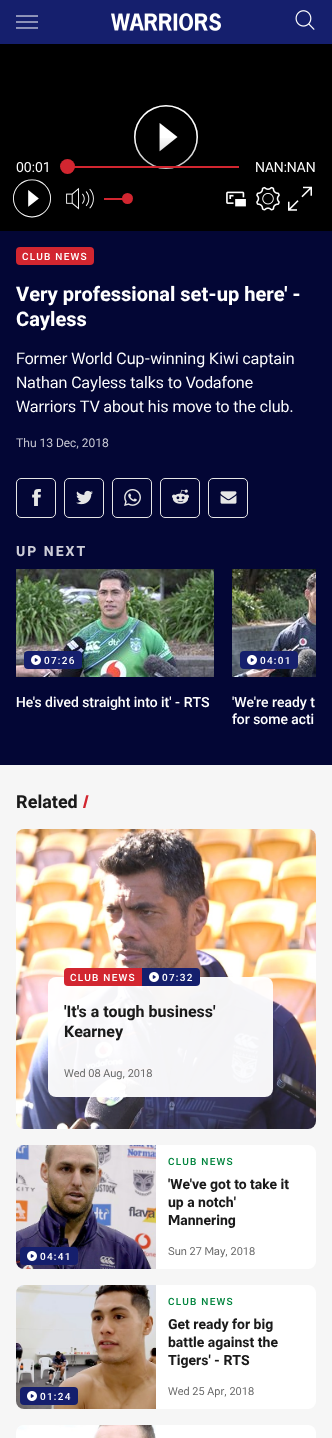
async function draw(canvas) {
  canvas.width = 332;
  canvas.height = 1438;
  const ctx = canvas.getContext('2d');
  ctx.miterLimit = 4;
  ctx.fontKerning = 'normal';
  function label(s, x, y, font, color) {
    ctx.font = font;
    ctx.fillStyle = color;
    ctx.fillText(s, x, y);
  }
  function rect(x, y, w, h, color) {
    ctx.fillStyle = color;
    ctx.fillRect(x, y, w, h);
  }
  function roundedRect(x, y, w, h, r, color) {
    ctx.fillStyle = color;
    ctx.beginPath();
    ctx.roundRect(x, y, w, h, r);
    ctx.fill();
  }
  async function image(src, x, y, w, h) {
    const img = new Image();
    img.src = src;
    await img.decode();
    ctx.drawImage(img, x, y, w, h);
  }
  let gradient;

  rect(0, 0, 332, 1438, '#f6f6f6');
  rect(0, 0, 332, 44, '#151f6d');
  await image('assets/img1.png', 16, 15, 22, 14);
  await image('assets/img2.png', 111, 13, 110, 18);
  await image('assets/img3.png', 295, 10, 20, 20);
  rect(0, 231, 332, 534, '#030635');
  rect(0, 44, 332, 187, '#000');
  label('>', 134, 165, '64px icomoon', '#fff');
  gradient = ctx.createLinearGradient(166, 135, 166, 231);
  gradient.addColorStop(0, '#00000000');
  gradient.addColorStop(1, '#000000b3');
  ctx.fillStyle = gradient;
  ctx.fillRect(134, 138, 64, 31);
  label('00:01', 16, 172, '14px "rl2"', '#fff');
  rect(67, 166, 172, 2, '#d22630');
  ctx.beginPath();
  ctx.arc(67.5, 166.5, 7.5, 0, 2 * Math.PI);
  ctx.fill();
  label('NAN:NAN', 255, 172, '14px "rl2"', '#fff');
  label('>', 13, 215, '38px icomoon', '#fff');
  await image('assets/img4.png', 66, 187, 28, 23);
  rect(104, 198, 23, 2, '#d22630');
  ctx.beginPath();
  ctx.arc(127.5, 198.5, 5.5, 0, 2 * Math.PI);
  ctx.fill();
  await image('assets/img5.png', 226, 191, 20, 16);
  await image('assets/img6.png', 256, 186, 24, 25);
  await image('assets/img7.png', 288, 186, 24, 25);
  roundedRect(16, 247, 78, 18, 4, '#d22630');
  ctx.letterSpacing = '1.25px';
  label('CLUB NEWS', 22, 260, '500 10px "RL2"', '#fff');
  ctx.letterSpacing = '0px';
  label('Very professional set-up here\' -', 16, 301, 'bold 20.1px "RL2"', '#fff');
  label('Cayless', 16, 326, 'bold 20.1px "RL2"', '#fff');
  label('Former World Cup-winning Kiwi captain', 16, 364, '16px "rl2"', '#fff');
  label('Nathan Cayless talks to Vodafone', 16, 388, '16px "rl2"', '#fff');
  label('Warriors TV about his move to the club.', 16, 412, '16px "rl2"', '#fff');
  label('Thu 13 Dec, 2018', 16, 447, '12px "rl2"', '#cdcdd7');
  ctx.beginPath();
  ctx.roundRect(16.5, 478.5, 39, 39, 4.5);
  ctx.strokeStyle = '#e6e6e6';
  ctx.stroke();
  await image('assets/img8.png', 32, 489, 9, 17);
  ctx.beginPath();
  ctx.roundRect(64.5, 478.5, 39, 39, 4.5);
  ctx.stroke();
  await image('assets/img9.png', 76, 490, 17, 15);
  ctx.beginPath();
  ctx.roundRect(112.5, 478.5, 39, 39, 4.5);
  ctx.stroke();
  await image('assets/img10.png', 124, 489, 17, 17);
  ctx.beginPath();
  ctx.roundRect(160.5, 478.5, 39, 39, 4.5);
  ctx.stroke();
  await image('assets/img11.png', 172, 489, 17, 15);
  ctx.beginPath();
  ctx.roundRect(208.5, 478.5, 39, 39, 4.5);
  ctx.stroke();
  await image('assets/img12.png', 220, 491, 17, 13);
  ctx.letterSpacing = '2px';
  label('UP NEXT', 16, 556, 'bold 14px "RL2"', '#cdcdd7');
  await image('assets/img13.png', 16, 569, 198, 108);
  roundedRect(24, 651, 58, 18, 4, '#151f6d');
  await image('assets/img14.png', 31, 655, 10, 10);
  ctx.letterSpacing = '1.25px';
  label('07:26', 44, 664, '500 10px "RL2"', '#fff');
  ctx.letterSpacing = '0px';
  label('He\'s dived straight into it\' - RTS', 16, 707, '500 14px "RL2"', '#fff');
  await image('assets/img15.png', 232, 569, 84, 108);
  roundedRect(240, 651, 58, 18, 4, '#151f6d');
  await image('assets/img14.png', 247, 655, 10, 10);
  ctx.letterSpacing = '1.25px';
  label('04:01', 260, 664, '500 10px "RL2"', '#fff');
  ctx.letterSpacing = '0px';
  label('\'We\'re ready t', 232, 707, '500 14px "RL2"', '#fff');
  label('for some acti', 232, 724, '500 14px "RL2"', '#fff');
  label('Related', 16, 808, 'bold 18px "RL2"', '#1a1a1a');
  label('/', 82, 808, 'bold 18px "RL2"', '#d22630');
  roundedRect(16, 829, 300, 300, 8, '#fff');
  await image('assets/img16.png', 16, 829, 300, 300);
  roundedRect(48, 977, 225, 120, 8, '#fffffff2');
  ctx.fillStyle = '#d22630';
  ctx.beginPath();
  ctx.roundRect(64, 968, 78, 18, [4, 0, 0, 4]);
  ctx.fill();
  ctx.letterSpacing = '1.25px';
  label('CLUB NEWS', 70, 981, '500 10px "RL2"', '#fff');
  ctx.fillStyle = '#151f6d';
  ctx.beginPath();
  ctx.roundRect(142, 968, 58, 18, [0, 4, 4, 0]);
  ctx.fill();
  await image('assets/img14.png', 149, 972, 10, 10);
  label('07:32', 162, 981, '500 10px "RL2"', '#fff');
  ctx.letterSpacing = '0px';
  label('\'It\'s a tough business\'', 64, 1017, 'bold 16px "RL2"', '#1a1a1a');
  label('Kearney', 64, 1037, 'bold 16px "RL2"', '#1a1a1a');
  label('Wed 08 Aug, 2018', 64, 1077, '11px "rl2"', '#666');
  roundedRect(16, 1145, 300, 124, 8, '#fff');
  await image('assets/img17.png', 16, 1145, 140, 124);
  ctx.letterSpacing = '1.25px';
  label('CLUB NEWS', 168, 1165, '500 10px "RL2"', '#00843d');
  ctx.letterSpacing = '0px';
  label('\'We\'ve got to take it', 168, 1189, 'bold 14px "RL2"', '#1a1a1a');
  label('up a notch\'', 168, 1207, 'bold 14px "RL2"', '#1a1a1a');
  label('Mannering', 168, 1225, 'bold 14px "RL2"', '#1a1a1a');
  roundedRect(20, 1247, 58, 18, 4, '#151f6d');
  await image('assets/img14.png', 27, 1251, 10, 10);
  ctx.letterSpacing = '1.25px';
  label('04:41', 40, 1260, '500 10px "RL2"', '#fff');
  ctx.letterSpacing = '0px';
  label('Sun 27 May, 2018', 168, 1255, '11px "rl2"', '#666');
  roundedRect(16, 1285, 300, 124, 8, '#fff');
  await image('assets/img18.png', 16, 1285, 140, 124);
  ctx.letterSpacing = '1.25px';
  label('CLUB NEWS', 168, 1305, '500 10px "RL2"', '#00843d');
  ctx.letterSpacing = '0px';
  label('Get ready for big', 168, 1329, 'bold 14px "RL2"', '#1a1a1a');
  label('battle against the', 168, 1347, 'bold 14px "RL2"', '#1a1a1a');
  label('Tigers\' - RTS', 168, 1365, 'bold 14px "RL2"', '#1a1a1a');
  roundedRect(20, 1387, 58, 18, 4, '#151f6d');
  await image('assets/img14.png', 27, 1391, 10, 10);
  ctx.letterSpacing = '1.25px';
  label('01:24', 40, 1400, '500 10px "RL2"', '#fff');
  ctx.letterSpacing = '0px';
  label('Wed 25 Apr, 2018', 168, 1395, '11px "rl2"', '#666');
  roundedRect(16, 1425, 300, 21, 8, '#fff');
  await image('assets/img19.png', 18, 1425, 138, 13);
}

draw(document.querySelector('canvas'));
